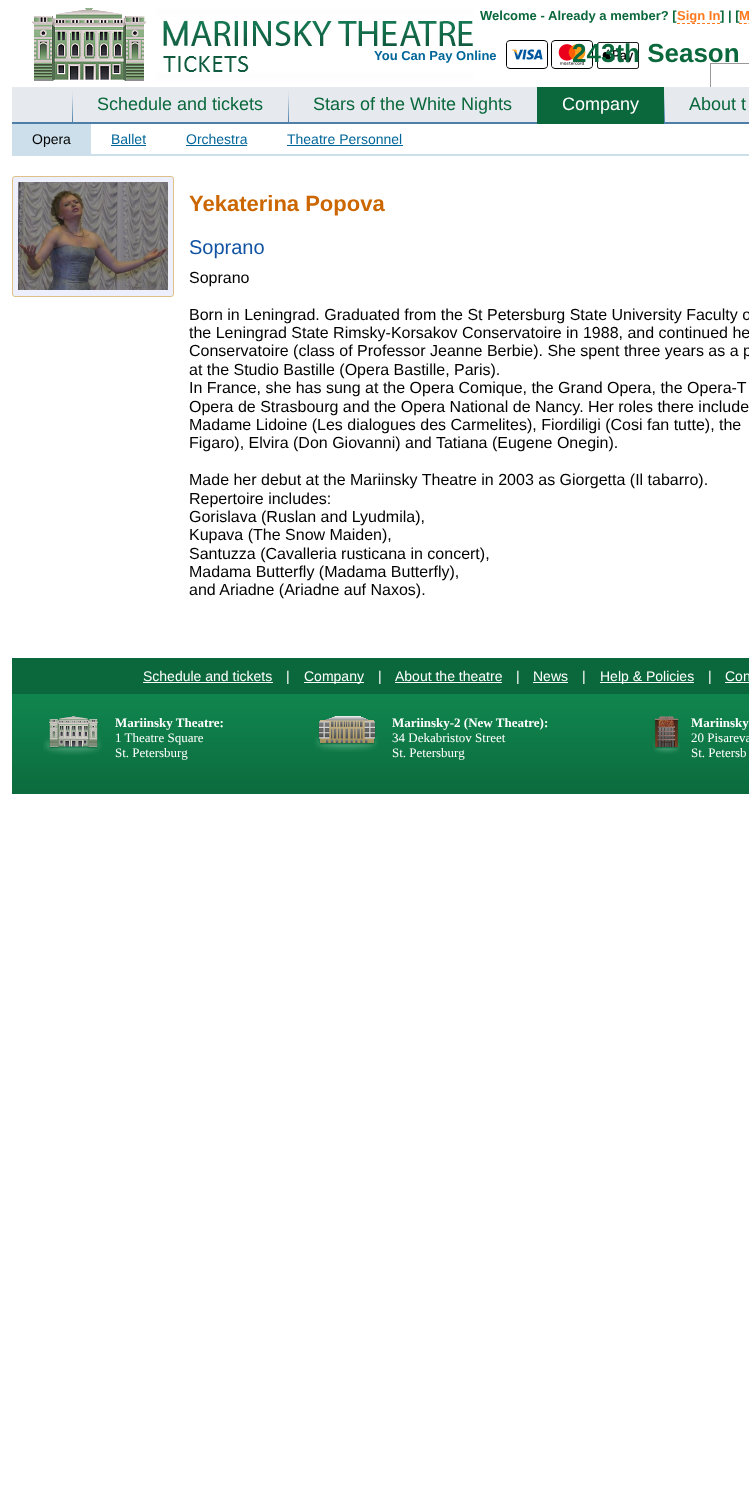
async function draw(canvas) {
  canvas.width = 749;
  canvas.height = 1487;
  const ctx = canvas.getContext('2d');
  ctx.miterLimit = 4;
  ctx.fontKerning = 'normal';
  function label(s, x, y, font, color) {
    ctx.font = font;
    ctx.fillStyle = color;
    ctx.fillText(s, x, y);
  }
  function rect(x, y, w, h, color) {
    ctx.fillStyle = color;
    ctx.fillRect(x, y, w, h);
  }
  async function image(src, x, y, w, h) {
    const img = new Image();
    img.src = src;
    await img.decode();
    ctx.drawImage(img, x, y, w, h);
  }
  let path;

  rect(0, 0, 749, 1487, '#fff');
  await image('assets/img1.png', 32, 8, 442, 73);
  label('Welcome -', 480, 20, 'bold 13px Liberation Sans', '#0b683c');
  label('Already a member? [', 548, 20, 'bold 13px Liberation Sans', '#0b683c');
  label('Sign In', 677, 20, 'bold 13px Liberation Sans', '#ff7a1f');
  path = new Path2D('M677 23.5H720');
  ctx.strokeStyle = '#ff7a1f';
  ctx.setLineDash([3, 2]);
  ctx.stroke(path);
  label('] | [', 720, 20, 'bold 13px Liberation Sans', '#0b683c');
  label('M', 739, 20, 'bold 13px Liberation Sans', '#ff7a1f');
  path = new Path2D('M739 23.5H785');
  ctx.setLineDash([3, 1.78]);
  ctx.stroke(path);
  label('You Can Pay Online', 374, 60, 'bold 13px Liberation Sans', '#069');
  ctx.beginPath();
  ctx.roundRect(506.5, 40.5, 41, 28, 3.5);
  ctx.strokeStyle = '#000';
  ctx.setLineDash([]);
  ctx.stroke();
  ctx.beginPath();
  ctx.roundRect(551.5, 40.5, 41, 28, 3.5);
  ctx.stroke();
  await image('assets/img2.png', 507, 42, 40, 25);
  await image('assets/img3.png', 552, 42, 40, 25);
  await image('assets/img4.png', 597, 42, 42, 27);
  label('243th Season', 572, 62, 'bold 26px Liberation Sans', '#0b683c');
  rect(12, 87, 737, 35, '#e6eaef');
  ctx.save();
  ctx.beginPath();
  ctx.rect(12, 2, 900, 85);
  ctx.clip();
  ctx.strokeStyle = '#999';
  ctx.strokeRect(710.5, 63.5, 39, 25);
  ctx.restore();
  rect(12, 122, 737, 2, '#4f7fa8');
  await image('assets/img5.png', 72, 92, 1, 31);
  label('Schedule and tickets', 97, 110, '18px Liberation Sans', '#0b683c');
  await image('assets/img5.png', 288, 92, 1, 31);
  label('Stars of the White Nights', 313, 110, '18px Liberation Sans', '#0b683c');
  rect(537, 87, 127, 37, '#0b683c');
  label('Company', 562, 110, '18px Liberation Sans', '#fff');
  await image('assets/img5.png', 664, 92, 1, 31);
  label('About t', 689, 110, '18px Liberation Sans', '#0b683c');
  rect(12, 154, 737, 2, '#ccdfea');
  rect(12, 124, 79, 30, '#ccdfea');
  label('Opera', 32, 144, '14px Liberation Sans', '#000');
  label('Ballet', 111, 144, '14px Liberation Sans', '#069');
  rect(111, 145, 35, 1, '#069');
  label('Orchestra', 186, 144, '14px Liberation Sans', '#069');
  rect(186, 145, 61, 1, '#069');
  label('Theatre Personnel', 287, 144, '14px Liberation Sans', '#069');
  rect(287, 145, 116, 1, '#069');
  ctx.fillStyle = '#eeeffd';
  ctx.beginPath();
  ctx.roundRect(12.5, 176.5, 161, 120, 2.5);
  ctx.fill();
  ctx.strokeStyle = '#dec187';
  ctx.stroke();
  await image('assets/img6.png', 18, 182, 150, 108);
  label('Yekaterina Popova', 189, 211, 'bold 22px Liberation Sans', '#c60');
  label('Soprano', 189, 254, '20px Liberation Sans', '#1253a3');
  label('Soprano', 189, 283, '16px Liberation Sans', '#000');
  label('Born in Leningrad. Graduated from the St Petersburg State University Faculty o', 189, 320, '16px Liberation Sans', '#000');
  label('the Leningrad State Rimsky-Korsakov Conservatoire in 1988, and continued he', 189, 338, '16px Liberation Sans', '#000');
  label('Conservatoire (class of Professor Jeanne Berbie). She spent three years as a p', 189, 356, '16px Liberation Sans', '#000');
  label('at the Studio Bastille (Opera Bastille, Paris).', 189, 375, '16px Liberation Sans', '#000');
  label('In France, she has sung at the Opera Comique, the Grand Opera, the Opera-T', 189, 393, '16px Liberation Sans', '#000');
  label('Opera de Strasbourg and the Opera National de Nancy. Her roles there include', 189, 412, '16px Liberation Sans', '#000');
  label('Madame Lidoine (Les dialogues des Carmelites), Fiordiligi (Cosi fan tutte), the', 189, 430, '16px Liberation Sans', '#000');
  label('Figaro), Elvira (Don Giovanni) and Tatiana (Eugene Onegin).', 189, 448, '16px Liberation Sans', '#000');
  label('Made her debut at the Mariinsky Theatre in 2003 as Giorgetta (Il tabarro).', 189, 485, '16px Liberation Sans', '#000');
  label('Repertoire includes:', 189, 504, '16px Liberation Sans', '#000');
  label('Gorislava (Ruslan and Lyudmila),', 189, 522, '16px Liberation Sans', '#000');
  label('Kupava (The Snow Maiden),', 189, 540, '16px Liberation Sans', '#000');
  label('Santuzza (Cavalleria rusticana in concert),', 189, 559, '16px Liberation Sans', '#000');
  label('Madama Butterfly (Madama Butterfly),', 189, 577, '16px Liberation Sans', '#000');
  label('and Ariadne (Ariadne auf Naxos).', 189, 595, '16px Liberation Sans', '#000');
  rect(12, 658, 737, 36, '#0b683c');
  label('Schedule and tickets', 143, 681, '14px Liberation Sans', '#fff');
  rect(143, 682, 130, 1, '#fff');
  label('|', 286, 681, '14px Liberation Sans', '#fff');
  rect(304, 682, 60, 1, '#fff');
  label('Company', 304, 681, '14px Liberation Sans', '#fff');
  label('|', 378, 681, '14px Liberation Sans', '#fff');
  label('About the theatre', 395, 681, '14px Liberation Sans', '#fff');
  rect(395, 682, 107, 1, '#fff');
  label('|', 516, 681, '14px Liberation Sans', '#fff');
  label('News', 533, 681, '14px Liberation Sans', '#fff');
  rect(533, 682, 35, 1, '#fff');
  label('|', 582, 681, '14px Liberation Sans', '#fff');
  rect(600, 682, 94, 1, '#fff');
  label('Help & Policies', 600, 681, '14px Liberation Sans', '#fff');
  label('|', 708, 681, '14px Liberation Sans', '#fff');
  label('Con', 725, 681, '14px Liberation Sans', '#fff');
  rect(725, 682, 24, 1, '#fff');
  await image('assets/img7.png', 12, 694, 737, 100);
  await image('assets/img8.png', 43, 716, 59, 39);
  label('Mariinsky Theatre:', 115, 727, 'bold 13px Liberation Serif', '#fff');
  label('1 Theatre Square', 115, 742, '13px Liberation Serif', '#fff');
  label('St. Petersburg', 115, 757, '13px Liberation Serif', '#fff');
  await image('assets/img9.png', 314, 716, 65, 36);
  label('Mariinsky-2 (New Theatre):', 392, 727, 'bold 13px Liberation Serif', '#fff');
  label('34 Dekabristov Street', 392, 742, '13px Liberation Serif', '#fff');
  label('St. Petersburg', 392, 757, '13px Liberation Serif', '#fff');
  await image('assets/img10.png', 653, 716, 27, 38);
  label('Mariinsky', 691, 727, 'bold 13px Liberation Serif', '#fff');
  label('20 Pisareva', 691, 742, '13px Liberation Serif', '#fff');
  label('St. Petersb', 691, 757, '13px Liberation Serif', '#fff');
}

draw(document.querySelector('canvas'));
